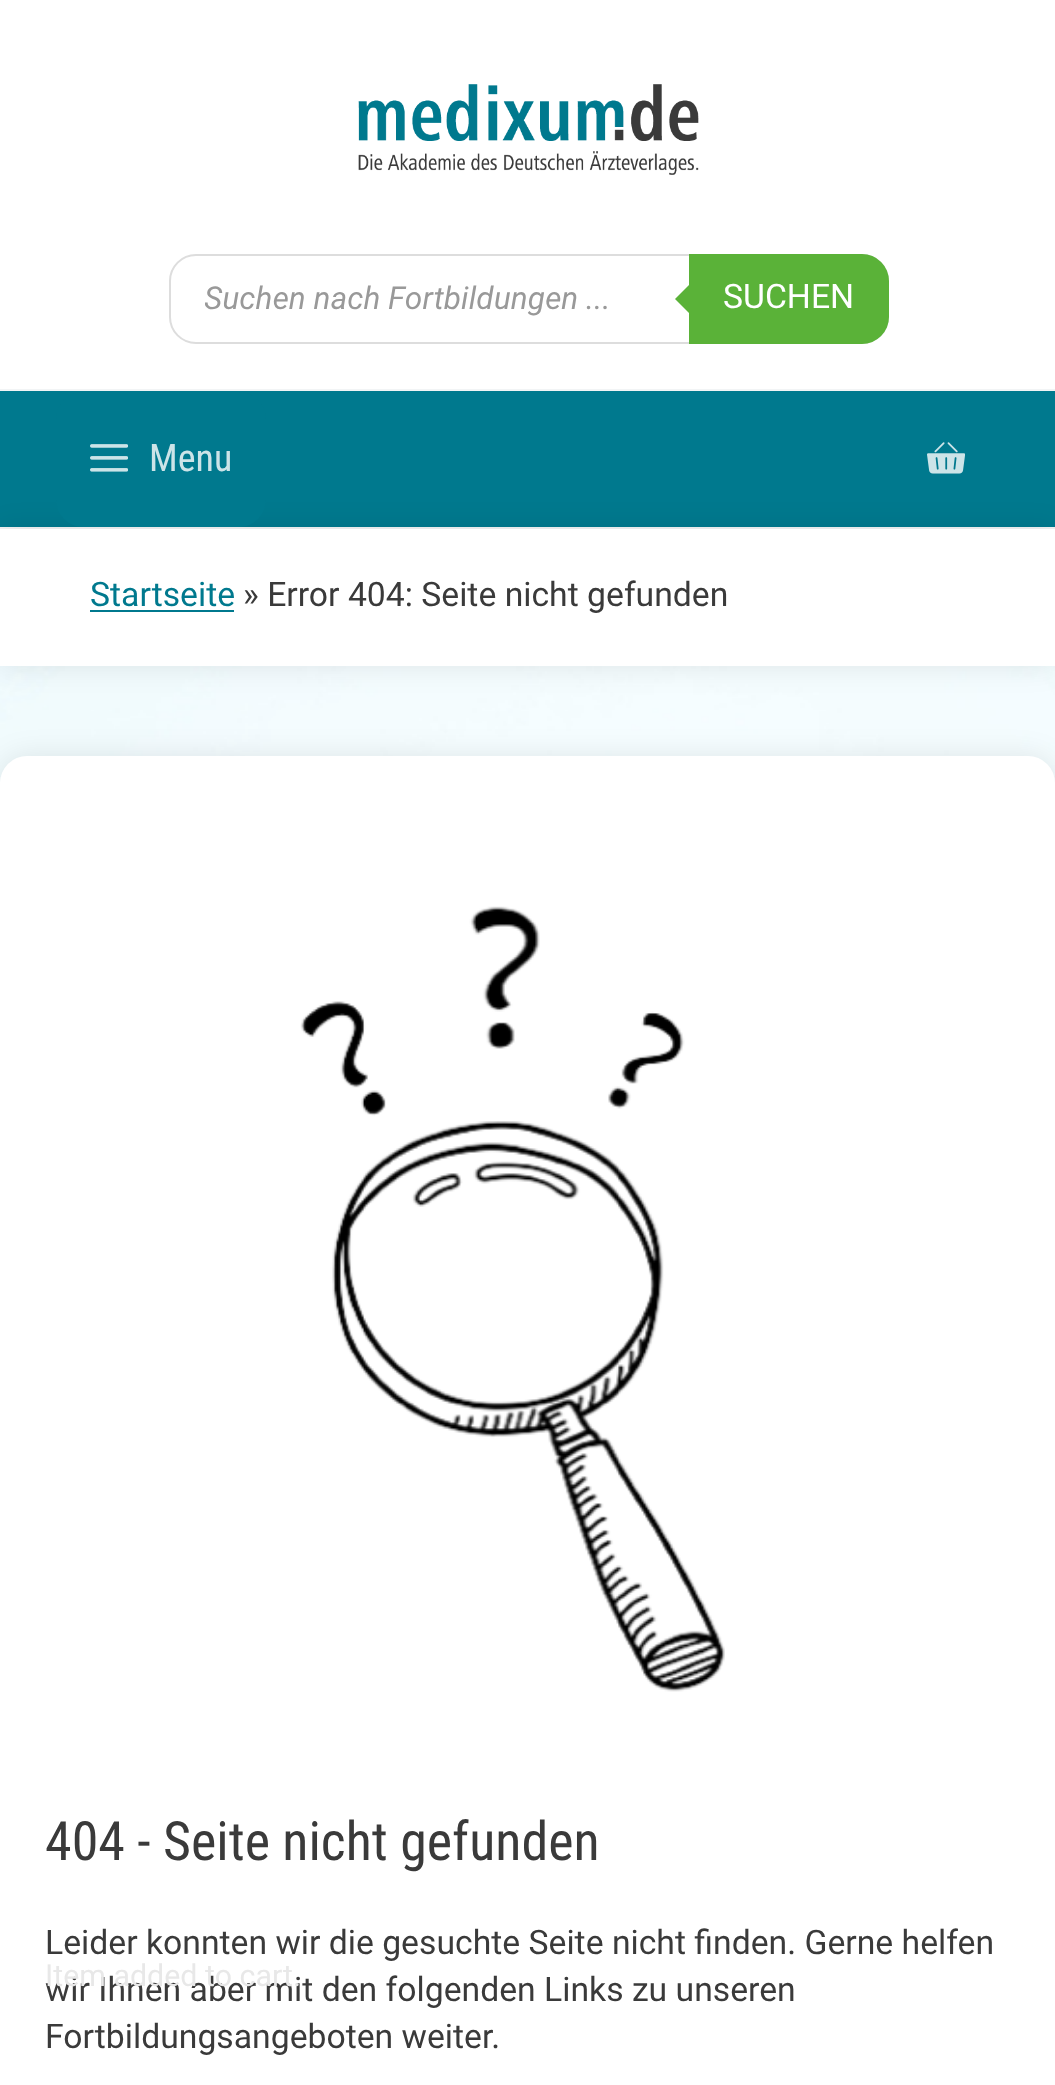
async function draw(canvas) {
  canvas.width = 1055;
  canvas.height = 2085;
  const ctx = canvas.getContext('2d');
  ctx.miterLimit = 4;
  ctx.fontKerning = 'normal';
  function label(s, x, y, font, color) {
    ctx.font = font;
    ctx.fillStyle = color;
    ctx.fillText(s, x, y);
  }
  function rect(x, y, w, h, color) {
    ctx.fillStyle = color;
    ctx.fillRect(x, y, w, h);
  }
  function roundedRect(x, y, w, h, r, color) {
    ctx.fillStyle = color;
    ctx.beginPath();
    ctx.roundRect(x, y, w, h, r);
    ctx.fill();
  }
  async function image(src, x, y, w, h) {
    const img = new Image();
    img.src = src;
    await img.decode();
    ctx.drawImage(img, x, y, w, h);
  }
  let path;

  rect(0, 0, 1055, 2085, '#fff');
  await image('assets/img1.png', 0, 666, 1055, 117);
  await image('assets/img2.png', 358, 84, 341, 91);
  ctx.beginPath();
  ctx.roundRect(170, 255, 718, 88, 26);
  ctx.strokeStyle = '#ddd';
  ctx.lineWidth = 2;
  ctx.stroke();
  ctx.save();
  ctx.beginPath();
  ctx.rect(205, 281, 648, 36);
  ctx.clip();
  label('Suchen nach Fortbildungen ...', 204, 309, 'italic 31.5px Roboto', '#999');
  ctx.restore();
  ctx.fillStyle = '#5ab238';
  ctx.beginPath();
  ctx.roundRect(689, 254, 200, 90, [0, 27, 27, 0]);
  ctx.fill();
  path = new Path2D('M693 281V317L675 299Z');
  ctx.fill(path);
  label('SUCHEN', 723, 308, '33.75px Roboto', '#fff');
  rect(0, 391, 1055, 136, '#00798e');
  rect(0, 389, 1055, 2, '#f2f4f5');
  rect(0, 527, 1055, 2, '#f2f4f5');
  ctx.fillStyle = '#00000017';
  ctx.filter = 'blur(14.5px)';
  ctx.beginPath();
  ctx.rect(0, 529, 1055, 137);
  ctx.fill();
  ctx.filter = 'none';
  roundedRect(56, 392, 210, 135, 27, '#00798e');
  await image('assets/img3.png', 90, 444, 38, 28);
  label('Menu', 149, 471, '38px Roboto Condensed', '#cce4e8');
  await image('assets/img4.png', 927, 442, 38, 32);
  rect(0, 529, 1055, 137, '#fff');
  label('Startseite', 90, 606, '33.75px Roboto', '#00798e');
  rect(90, 610, 144, 2, '#00798e');
  label('» Error 404: Seite nicht gefunden', 243, 606, '33.75px Roboto', '#3a3a3a');
  ctx.fillStyle = '#00000017';
  ctx.filter = 'blur(14.5px)';
  ctx.beginPath();
  ctx.roundRect(0, 756, 1055, 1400, 27);
  ctx.fill();
  ctx.filter = 'none';
  roundedRect(0, 756, 1055, 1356, 27, '#fff');
  await image('assets/img5.png', 300, 906, 425, 786);
  label('404 - Seite nicht gefunden', 45, 1860, '54px Roboto Condensed', '#3a3a3a');
  label('Leider konnten wir die gesuchte Seite nicht finden. Gerne helfen', 45, 1954, '33.75px Roboto', '#3a3a3a');
  label('wir Ihnen aber mit den folgenden Links zu unseren', 45, 2001, '33.75px Roboto', '#3a3a3a');
  label('Fortbildungsangeboten weiter.', 45, 2048, '33.75px Roboto', '#3a3a3a');
  label('Item added to cart.', 45, 1986, '30.4px Roboto', '#e8e8e8');
}

draw(document.querySelector('canvas'));
